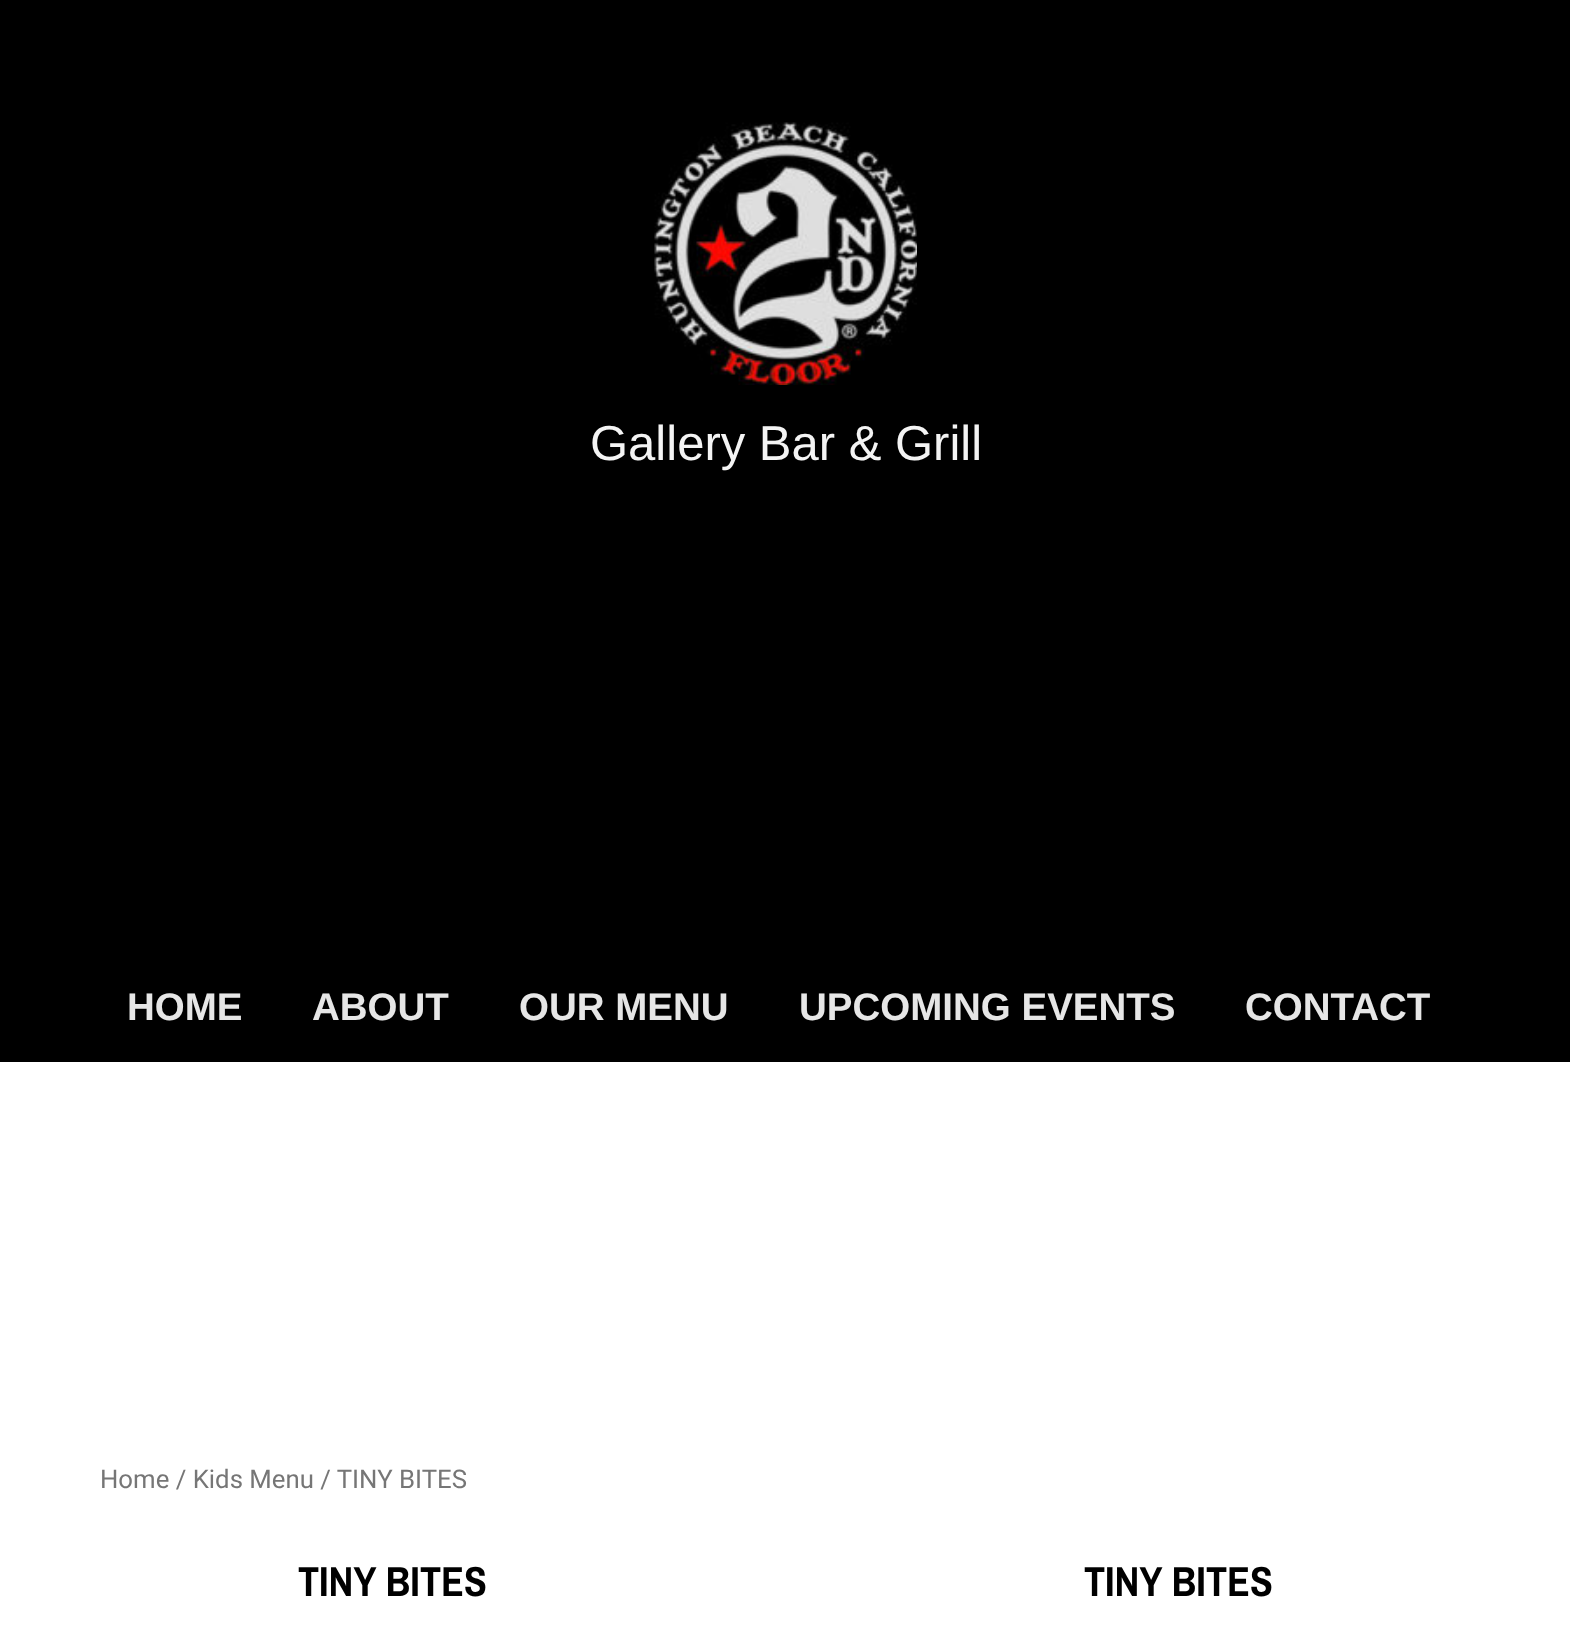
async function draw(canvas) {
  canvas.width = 1570;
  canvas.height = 1645;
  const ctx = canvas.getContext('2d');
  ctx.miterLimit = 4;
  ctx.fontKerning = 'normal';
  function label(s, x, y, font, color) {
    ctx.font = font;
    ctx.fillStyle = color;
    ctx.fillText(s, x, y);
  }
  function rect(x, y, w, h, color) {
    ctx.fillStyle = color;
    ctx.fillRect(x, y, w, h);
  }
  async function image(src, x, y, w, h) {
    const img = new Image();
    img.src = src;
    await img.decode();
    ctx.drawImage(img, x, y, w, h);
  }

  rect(0, 0, 1570, 1645, '#fff');
  rect(0, 0, 1570, 1062, '#000');
  await image('assets/img1.png', 654, 122, 263, 263);
  label('Gallery Bar & Grill', 590, 460, '49px Liberation Sans', '#f4f4f4');
  label('HOME', 127, 1020, 'bold 38.5px Liberation Sans', '#e6e6e6');
  label('ABOUT', 312, 1020, 'bold 38.5px Liberation Sans', '#e6e6e6');
  label('OUR MENU', 519, 1020, 'bold 38.5px Liberation Sans', '#e6e6e6');
  label('UPCOMING EVENTS', 799, 1020, 'bold 38.5px Liberation Sans', '#e6e6e6');
  label('CONTACT', 1245, 1020, 'bold 38.5px Liberation Sans', '#e6e6e6');
  label('Home / Kids Menu / TINY BITES', 100, 1488, '25.75px Roboto', '#767676');
  label('TINY BITES', 298, 1596, 'bold 42px Archivo Narrow', '#000');
  label('TINY BITES', 1084, 1596, 'bold 42px Archivo Narrow', '#000');
}

draw(document.querySelector('canvas'));
